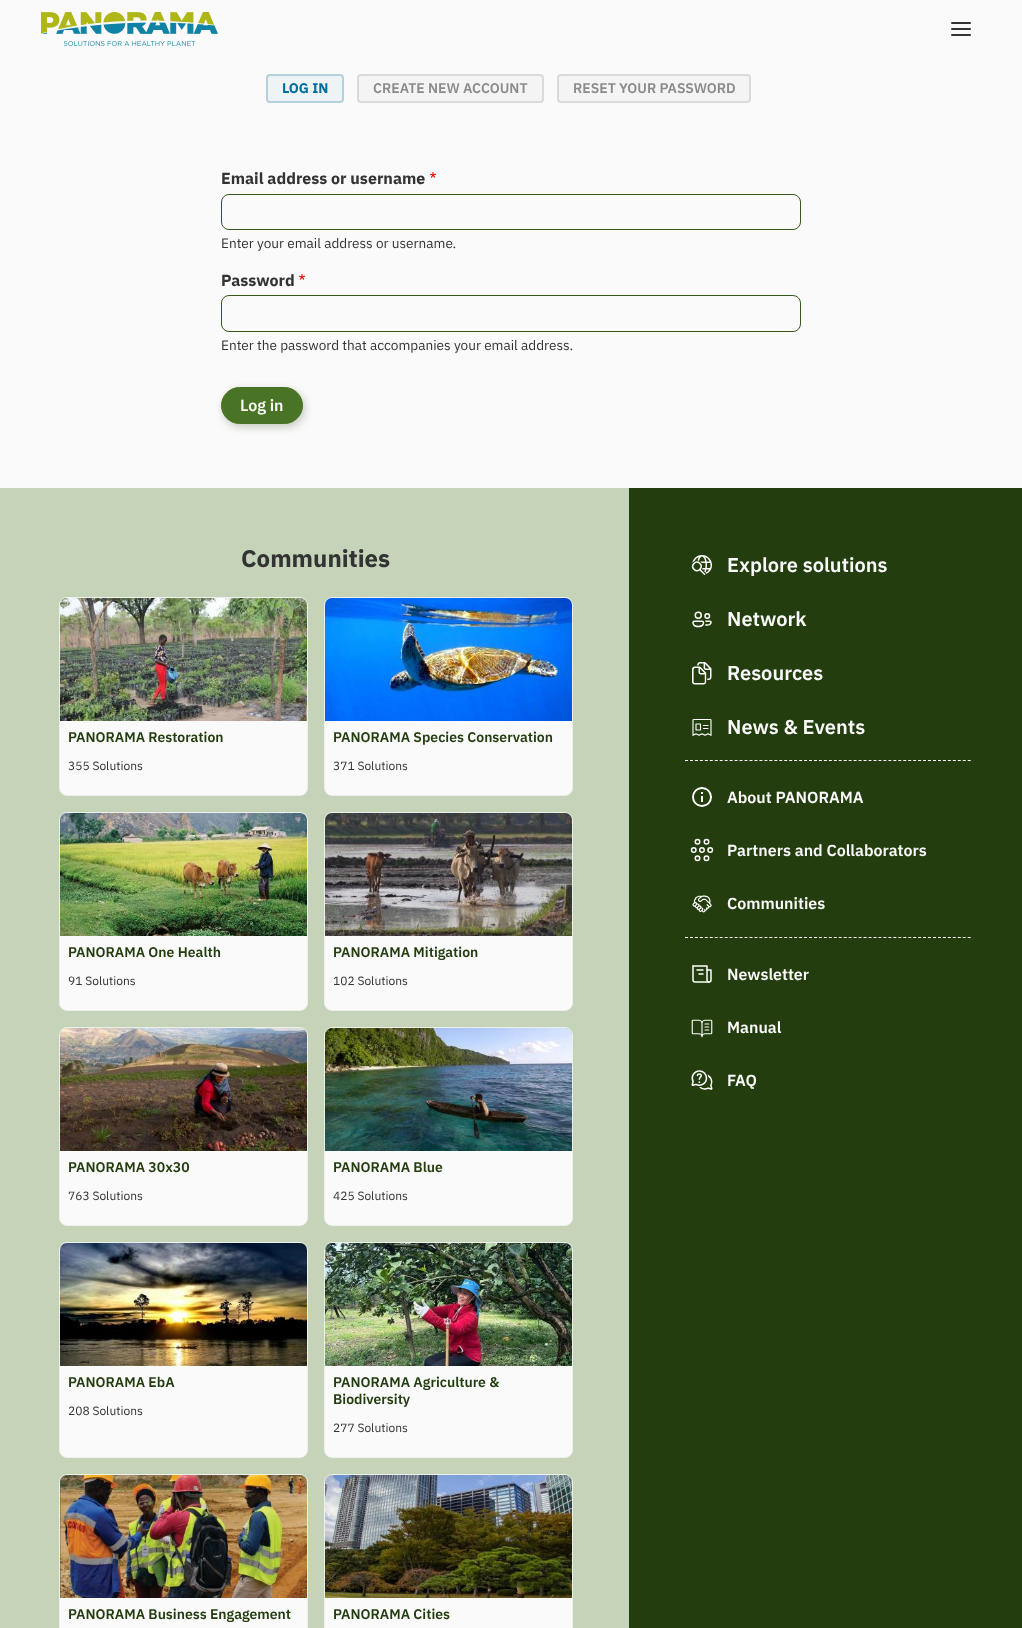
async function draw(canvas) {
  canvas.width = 1022;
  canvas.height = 1628;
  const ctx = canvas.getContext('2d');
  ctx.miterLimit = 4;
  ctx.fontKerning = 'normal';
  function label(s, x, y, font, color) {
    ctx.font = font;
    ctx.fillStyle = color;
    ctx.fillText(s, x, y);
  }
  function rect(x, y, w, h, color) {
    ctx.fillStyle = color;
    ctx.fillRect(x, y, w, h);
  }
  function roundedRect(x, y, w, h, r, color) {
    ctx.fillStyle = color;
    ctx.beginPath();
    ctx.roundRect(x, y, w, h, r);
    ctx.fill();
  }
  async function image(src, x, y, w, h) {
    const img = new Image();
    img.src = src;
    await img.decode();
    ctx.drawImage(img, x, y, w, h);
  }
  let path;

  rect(0, 0, 1022, 1628, '#fafafa');
  await image('assets/img1.png', 41, 12, 177, 34);
  roundedRect(951, 22, 20, 2, 1, '#333');
  roundedRect(951, 28, 20, 2, 1, '#333');
  roundedRect(951, 34, 20, 2, 1, '#333');
  roundedRect(266, 74, 78, 29, 4, '#eef3f5');
  ctx.beginPath();
  ctx.roundRect(267, 75, 76, 27, 3);
  ctx.strokeStyle = '#036e9b40';
  ctx.lineWidth = 2;
  ctx.stroke();
  label('LOG IN', 282, 93, 'bold 14px IBM Plex Sans', '#036e9b');
  ctx.fillStyle = '#f4f4f4';
  ctx.beginPath();
  ctx.roundRect(358, 75, 185, 27, 3);
  ctx.fill();
  ctx.strokeStyle = '#dadada';
  ctx.stroke();
  label('CREATE NEW ACCOUNT', 373, 93, '600 14px IBM Plex Sans', '#8b8b8b');
  ctx.fillStyle = '#f4f4f4';
  ctx.beginPath();
  ctx.roundRect(558, 75, 192, 27, 3);
  ctx.fill();
  ctx.stroke();
  label('RESET YOUR PASSWORD', 573, 93, '600 14px IBM Plex Sans', '#8b8b8b');
  label('Email address or username', 221, 184, 'bold 16px IBM Plex Sans', '#333');
  await image('assets/img2.png', 430, 172, 6, 6);
  ctx.beginPath();
  ctx.roundRect(221.5, 194.5, 579, 35, 7.5);
  ctx.strokeStyle = '#36571b';
  ctx.lineWidth = 1;
  ctx.stroke();
  label('Enter your email address or username.', 221, 248, '13.6px IBM Plex Sans', '#333');
  label('Password', 221, 286, 'bold 16px IBM Plex Sans', '#333');
  await image('assets/img2.png', 299, 274, 6, 6);
  ctx.beginPath();
  ctx.roundRect(221.5, 295.5, 579, 36, 7.5);
  ctx.stroke();
  label('Enter the password that accompanies your email address.', 221, 350, '13.6px IBM Plex Sans', '#333');
  ctx.fillStyle = '#233d0e40';
  ctx.filter = 'blur(4px)';
  ctx.beginPath();
  ctx.roundRect(223, 390, 82, 37, 18.5);
  ctx.fill();
  ctx.filter = 'none';
  ctx.fillStyle = '#4a7425';
  ctx.beginPath();
  ctx.roundRect(221.5, 387.5, 81, 36, 18);
  ctx.fill();
  ctx.strokeStyle = '#4a7425';
  ctx.stroke();
  label('Log in', 240, 411, '600 16px IBM Plex Sans', '#fafafa');
  rect(0, 488, 629, 1140, '#c5d4b8');
  label('Communities', 241, 567, 'bold 24px IBM Plex Sans', '#333');
  ctx.fillStyle = '#fafafa';
  ctx.beginPath();
  ctx.roundRect(59.5, 597.5, 248, 198, 7.5);
  ctx.fill();
  ctx.strokeStyle = '#ecefea';
  ctx.stroke();
  ctx.fillStyle = '#c5d4b8';
  path = new Path2D('M307 715V605C307 601 304 598 300 598H67C63 598 60 601 60 605V721C98 715 200 703 307 715Z');
  ctx.fill(path);
  await image('assets/img3.png', 60, 598, 247, 123);
  label('PANORAMA Restoration', 68, 742, '600 14px IBM Plex Sans', '#233d0e');
  label('355 Solutions', 68, 770, '12px IBM Plex Sans', '#333');
  ctx.fillStyle = '#fafafa';
  ctx.beginPath();
  ctx.roundRect(324.5, 597.5, 248, 198, 7.5);
  ctx.fill();
  ctx.stroke();
  ctx.fillStyle = '#c5d4b8';
  path = new Path2D('M572 715V605C572 601 569 598 565 598H332C328 598 325 601 325 605V721C363 715 465 703 572 715Z');
  ctx.fill(path);
  await image('assets/img4.png', 325, 598, 247, 123);
  label('PANORAMA Species Conservation', 333, 742, '600 14px IBM Plex Sans', '#233d0e');
  label('371 Solutions', 333, 770, '12px IBM Plex Sans', '#333');
  ctx.fillStyle = '#fafafa';
  ctx.beginPath();
  ctx.roundRect(59.5, 812.5, 248, 198, 7.5);
  ctx.fill();
  ctx.stroke();
  ctx.fillStyle = '#c5d4b8';
  path = new Path2D('M307 930V820C307 816 304 813 300 813H67C63 813 60 816 60 820V936C98 930 200 918 307 930Z');
  ctx.fill(path);
  await image('assets/img5.png', 60, 813, 247, 123);
  label('PANORAMA One Health', 68, 957, '600 14px IBM Plex Sans', '#233d0e');
  label('91 Solutions', 68, 985, '12px IBM Plex Sans', '#333');
  ctx.fillStyle = '#fafafa';
  ctx.beginPath();
  ctx.roundRect(324.5, 812.5, 248, 198, 7.5);
  ctx.fill();
  ctx.stroke();
  ctx.fillStyle = '#c5d4b8';
  path = new Path2D('M572 930V820C572 816 569 813 565 813H332C328 813 325 816 325 820V936C363 930 465 918 572 930Z');
  ctx.fill(path);
  await image('assets/img6.png', 325, 813, 247, 123);
  label('PANORAMA Mitigation', 333, 957, '600 14px IBM Plex Sans', '#233d0e');
  label('102 Solutions', 333, 985, '12px IBM Plex Sans', '#333');
  ctx.fillStyle = '#fafafa';
  ctx.beginPath();
  ctx.roundRect(59.5, 1027.5, 248, 198, 7.5);
  ctx.fill();
  ctx.stroke();
  ctx.fillStyle = '#c5d4b8';
  path = new Path2D('M307 1145V1035C307 1031 304 1028 300 1028H67C63 1028 60 1031 60 1035V1151C98 1145 200 1133 307 1145Z');
  ctx.fill(path);
  await image('assets/img7.png', 60, 1028, 247, 123);
  label('PANORAMA 30x30', 68, 1172, '600 14px IBM Plex Sans', '#233d0e');
  label('763 Solutions', 68, 1200, '12px IBM Plex Sans', '#333');
  ctx.fillStyle = '#fafafa';
  ctx.beginPath();
  ctx.roundRect(324.5, 1027.5, 248, 198, 7.5);
  ctx.fill();
  ctx.stroke();
  ctx.fillStyle = '#c5d4b8';
  path = new Path2D('M572 1145V1035C572 1031 569 1028 565 1028H332C328 1028 325 1031 325 1035V1151C363 1145 465 1133 572 1145Z');
  ctx.fill(path);
  await image('assets/img8.png', 325, 1028, 247, 123);
  label('PANORAMA Blue', 333, 1172, '600 14px IBM Plex Sans', '#233d0e');
  label('425 Solutions', 333, 1200, '12px IBM Plex Sans', '#333');
  ctx.fillStyle = '#fafafa';
  ctx.beginPath();
  ctx.roundRect(59.5, 1242.5, 248, 215, 7.5);
  ctx.fill();
  ctx.stroke();
  ctx.fillStyle = '#c5d4b8';
  path = new Path2D('M307 1360V1250C307 1246 304 1243 300 1243H67C63 1243 60 1246 60 1250V1366C98 1360 200 1348 307 1360Z');
  ctx.fill(path);
  await image('assets/img9.png', 60, 1243, 247, 123);
  label('PANORAMA EbA', 68, 1387, '600 14px IBM Plex Sans', '#233d0e');
  label('208 Solutions', 68, 1415, '12px IBM Plex Sans', '#333');
  ctx.fillStyle = '#fafafa';
  ctx.beginPath();
  ctx.roundRect(324.5, 1242.5, 248, 215, 7.5);
  ctx.fill();
  ctx.stroke();
  ctx.fillStyle = '#c5d4b8';
  path = new Path2D('M572 1360V1250C572 1246 569 1243 565 1243H332C328 1243 325 1246 325 1250V1366C363 1360 465 1348 572 1360Z');
  ctx.fill(path);
  await image('assets/img10.png', 325, 1243, 247, 123);
  label('PANORAMA Agriculture &', 333, 1387, '600 14px IBM Plex Sans', '#233d0e');
  label('Biodiversity', 333, 1404, '600 14px IBM Plex Sans', '#233d0e');
  label('277 Solutions', 333, 1432, '12px IBM Plex Sans', '#333');
  ctx.fillStyle = '#fafafa';
  ctx.beginPath();
  ctx.roundRect(59.5, 1474.5, 248, 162, 7.5);
  ctx.fill();
  ctx.stroke();
  ctx.fillStyle = '#c5d4b8';
  path = new Path2D('M307 1592V1482C307 1478 304 1475 300 1475H67C63 1475 60 1478 60 1482V1598C98 1592 200 1580 307 1592Z');
  ctx.fill(path);
  await image('assets/img11.png', 60, 1475, 247, 123);
  label('PANORAMA Business Engagement', 68, 1619, '600 14px IBM Plex Sans', '#233d0e');
  ctx.fillStyle = '#fafafa';
  ctx.beginPath();
  ctx.roundRect(324.5, 1474.5, 248, 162, 7.5);
  ctx.fill();
  ctx.stroke();
  ctx.fillStyle = '#c5d4b8';
  path = new Path2D('M572 1592V1482C572 1478 569 1475 565 1475H332C328 1475 325 1478 325 1482V1598C363 1592 465 1580 572 1592Z');
  ctx.fill(path);
  await image('assets/img12.png', 325, 1475, 247, 123);
  label('PANORAMA Cities', 333, 1619, '600 14px IBM Plex Sans', '#233d0e');
  rect(629, 488, 393, 1140, '#233d0e');
  await image('assets/img13.png', 691, 555, 21, 20);
  label('Explore solutions', 727, 572, '600 20px IBM Plex Sans', '#fafafa');
  await image('assets/img14.png', 692, 611, 20, 17);
  label('Network', 727, 626, '600 20px IBM Plex Sans', '#fafafa');
  await image('assets/img15.png', 692, 662, 20, 23);
  label('Resources', 727, 680, '600 20px IBM Plex Sans', '#fafafa');
  await image('assets/img16.png', 692, 719, 20, 17);
  label('News & Events', 727, 734, '600 20px IBM Plex Sans', '#fafafa');
  path = new Path2D('M685 760.5H971');
  ctx.strokeStyle = '#fafafa';
  ctx.setLineDash([3, 1.96]);
  ctx.stroke(path);
  await image('assets/img17.png', 692, 787, 20, 20);
  label('About PANORAMA', 727, 803, '600 16px IBM Plex Sans', '#fafafa');
  await image('assets/img18.png', 690, 838, 24, 24);
  label('Partners and Collaborators', 727, 856, '600 16px IBM Plex Sans', '#fafafa');
  await image('assets/img19.png', 692, 895, 20, 18);
  label('Communities', 727, 909, '600 16px IBM Plex Sans', '#fafafa');
  path = new Path2D('M685 937.5H971');
  ctx.stroke(path);
  await image('assets/img20.png', 692, 965, 20, 18);
  label('Newsletter', 727, 980, '600 16px IBM Plex Sans', '#fafafa');
  await image('assets/img21.png', 691, 1019, 22, 19);
  label('Manual', 727, 1033, '600 16px IBM Plex Sans', '#fafafa');
  await image('assets/img22.png', 691, 1070, 22, 20);
  label('FAQ', 727, 1086, '600 16px IBM Plex Sans', '#fafafa');
}

draw(document.querySelector('canvas'));
